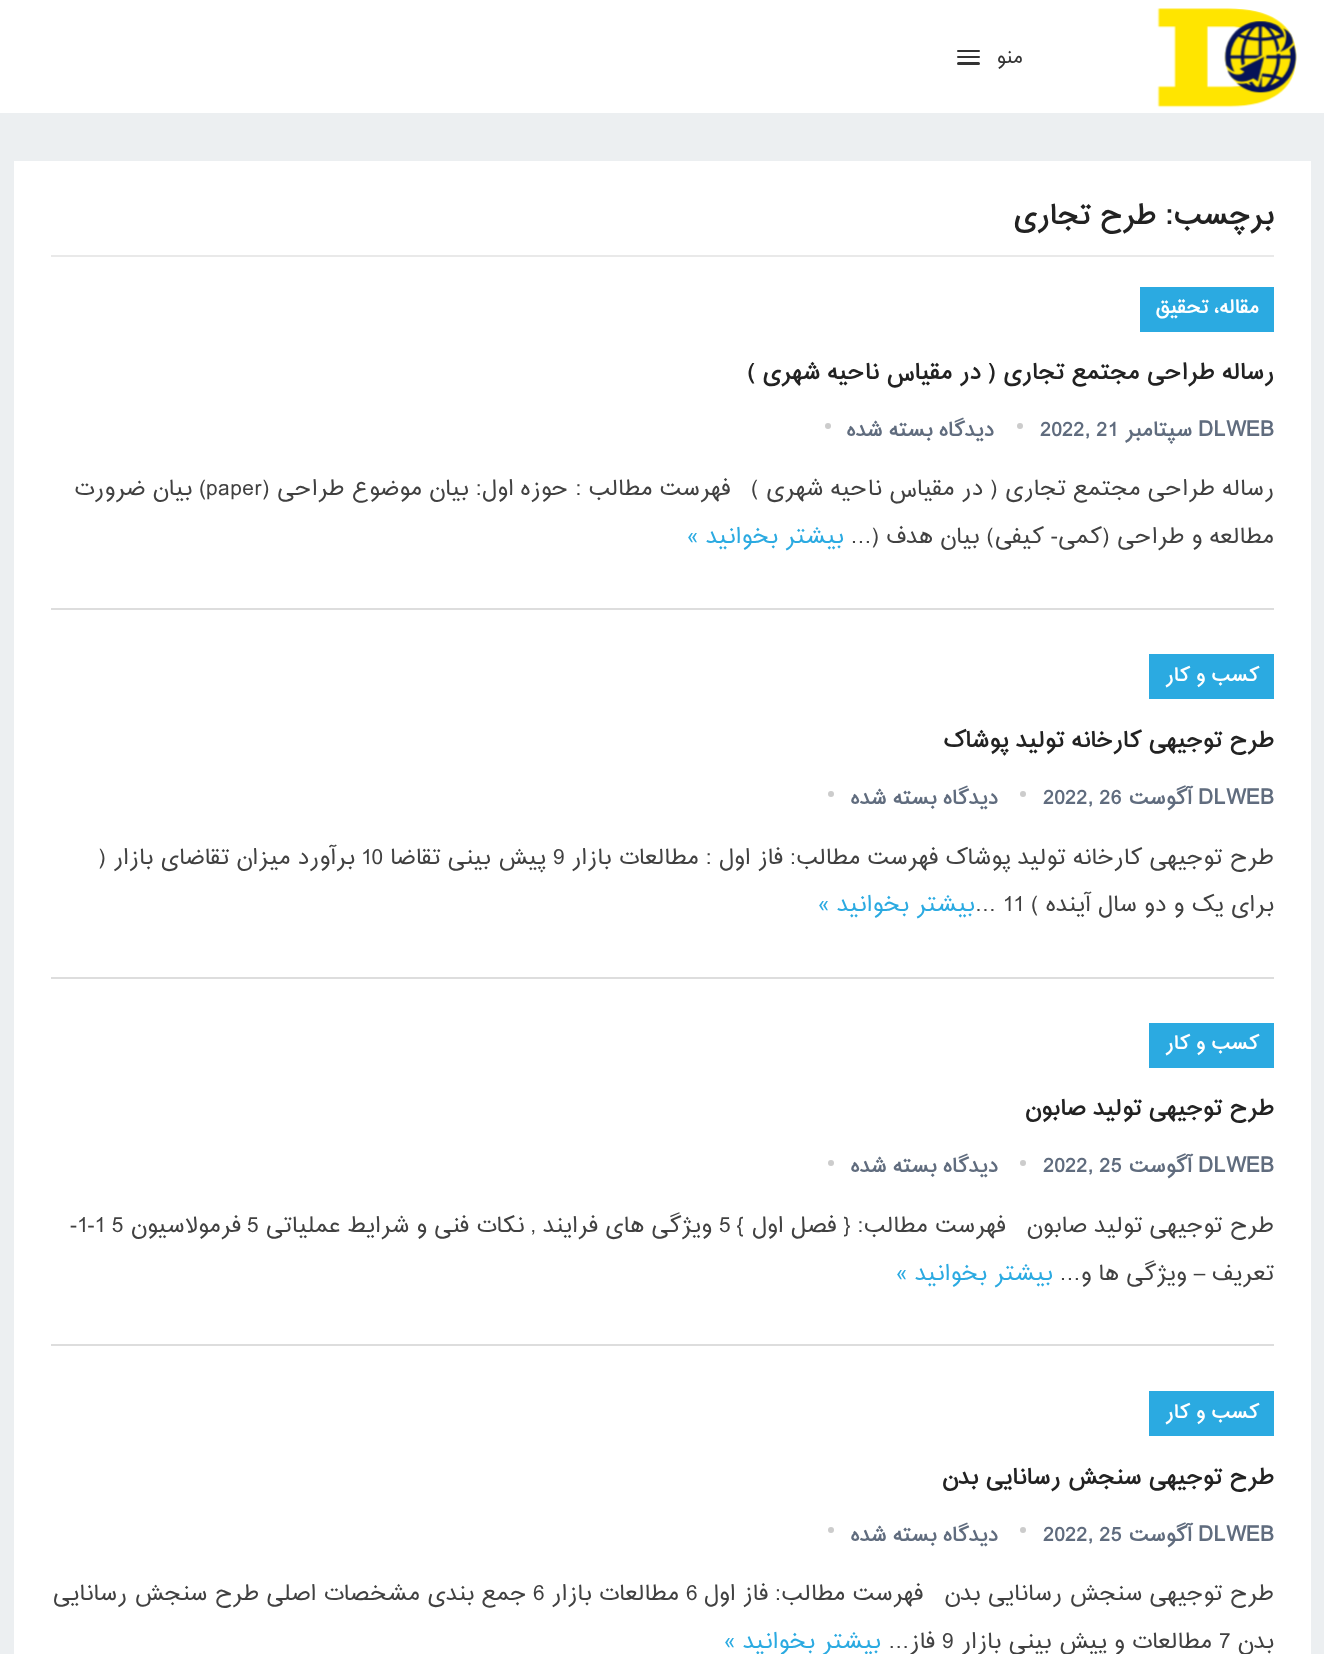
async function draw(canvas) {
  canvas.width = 1324;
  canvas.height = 1654;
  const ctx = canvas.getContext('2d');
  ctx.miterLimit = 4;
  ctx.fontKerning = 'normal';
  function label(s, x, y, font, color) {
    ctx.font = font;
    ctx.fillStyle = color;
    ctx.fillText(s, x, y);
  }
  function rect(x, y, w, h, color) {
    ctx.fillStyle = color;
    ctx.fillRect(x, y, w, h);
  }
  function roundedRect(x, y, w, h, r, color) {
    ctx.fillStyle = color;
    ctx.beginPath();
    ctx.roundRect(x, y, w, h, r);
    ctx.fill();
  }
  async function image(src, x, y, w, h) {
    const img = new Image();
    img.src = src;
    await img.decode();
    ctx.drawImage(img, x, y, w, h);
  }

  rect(0, 0, 1324, 1654, '#eceff1');
  rect(0, 0, 1324, 113, '#fff');
  await image('assets/img1.png', 1157, 8, 140, 100);
  ctx.letterSpacing = '1.5px';
  ctx.direction = 'rtl';
  label('منو', 1023, 63, '18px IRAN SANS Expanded', '#333');
  roundedRect(957, 50, 23, 2, 1, '#333');
  roundedRect(957, 56, 23, 2, 1, '#333');
  roundedRect(957, 62, 23, 3, 1.5, '#333');
  rect(14, 161, 1297, 1493, '#fff');
  rect(51, 255, 1223, 2, '#e9e9e9');
  ctx.letterSpacing = '0px';
  label('برچسب:', 1274, 224, 'bold 27px IRAN SANS Expanded', '#222');
  label('طرح تجاری', 1156, 224, 'bold 26.5px IRAN SANS Expanded', '#222');
  rect(51, 608, 1223, 2, '#ddd');
  rect(1140, 287, 134, 45, '#2baae1');
  label('مقاله، تحقیق', 1259, 313, 'bold 18px IRAN SANS Expanded', '#fff');
  label('رساله طراحی مجتمع تجاری ( در مقیاس ناحیه شهری )', 1274, 379, 'bold 21px IRAN SANS Expanded', '#222');
  ctx.direction = 'ltr';
  label('DLWEB', 1198, 436, 'bold 21px IRAN SANS Expanded', '#606c7e');
  ctx.direction = 'rtl';
  label('سپتامبر', 1192, 436, 'bold 19px IRAN SANS Expanded', '#606c7e');
  ctx.direction = 'ltr';
  label('2022, 21', 1040, 436, 'bold 19px IRAN SANS Expanded', '#606c7e');
  ctx.fillStyle = '#ccc';
  ctx.beginPath();
  ctx.arc(1020, 426, 3, 0, 2 * Math.PI);
  ctx.fill();
  ctx.direction = 'rtl';
  label('دیدگاه بسته شده', 994, 436, 'bold 18.75px IRAN SANS Expanded', '#606c7e');
  ctx.fillStyle = '#ccc';
  ctx.beginPath();
  ctx.arc(828, 426, 3, 0, 2 * Math.PI);
  ctx.fill();
  label('رساله طراحی مجتمع تجاری ( در مقیاس ناحیه شهری )   فهرست مطالب : حوزه اول: بیان موضوع طراحی (', 1274, 495, '20.85px IRAN SANS Expanded', '#414141');
  ctx.direction = 'ltr';
  label('paper', 206, 495, '20.85px IRAN SANS Expanded', '#414141');
  ctx.direction = 'rtl';
  label(') بیان ضرورت', 207, 495, '20.85px IRAN SANS Expanded', '#414141');
  label('مطالعه و طراحی (کمی- کیفی) بیان هدف (…', 1274, 543, '20.85px IRAN SANS Expanded', '#414141');
  label('بیشتر بخوانید »', 844, 543, '21px IRAN SANS Expanded', '#2baae1');
  rect(51, 977, 1223, 2, '#ddd');
  rect(1149, 654, 125, 45, '#2baae1');
  label('کسب و کار', 1259, 681, 'bold 18px IRAN SANS Expanded', '#fff');
  label('طرح توجیهی كارخانه تولید پوشاک', 1274, 747, 'bold 21px IRAN SANS Expanded', '#222');
  ctx.direction = 'ltr';
  label('DLWEB', 1198, 804, 'bold 21px IRAN SANS Expanded', '#606c7e');
  ctx.direction = 'rtl';
  label('آگوست', 1192, 804, 'bold 19px IRAN SANS Expanded', '#606c7e');
  ctx.direction = 'ltr';
  label('2022, 26', 1043, 804, 'bold 19px IRAN SANS Expanded', '#606c7e');
  ctx.fillStyle = '#ccc';
  ctx.beginPath();
  ctx.arc(1023, 794, 3, 0, 2 * Math.PI);
  ctx.fill();
  ctx.direction = 'rtl';
  label('دیدگاه بسته شده', 998, 804, 'bold 18.75px IRAN SANS Expanded', '#606c7e');
  ctx.fillStyle = '#ccc';
  ctx.beginPath();
  ctx.arc(831, 794, 3, 0, 2 * Math.PI);
  ctx.fill();
  label('طرح توجیهی كارخانه تولید پوشاک فهرست مطالب: فاز اول : مطالعات بازار', 1274, 864, '20.85px IRAN SANS Expanded', '#414141');
  ctx.direction = 'ltr';
  label('9', 553, 864, '20.85px IRAN SANS Expanded', '#414141');
  ctx.direction = 'rtl';
  label('پیش بینی تقاضا', 546, 864, '20.85px IRAN SANS Expanded', '#414141');
  ctx.direction = 'ltr';
  label('10', 361, 864, '20.85px IRAN SANS Expanded', '#414141');
  ctx.direction = 'rtl';
  label('برآورد میزان تقاضای بازار (', 355, 864, '20.85px IRAN SANS Expanded', '#414141');
  label('برای یک و دو سال آینده )', 1274, 911, '20.85px IRAN SANS Expanded', '#414141');
  ctx.direction = 'ltr';
  label('… 11', 975, 911, '20.85px IRAN SANS Expanded', '#414141');
  ctx.direction = 'rtl';
  label('بیشتر بخوانید »', 975, 911, '21px IRAN SANS Expanded', '#2baae1');
  rect(51, 1344, 1223, 2, '#ddd');
  rect(1149, 1023, 125, 45, '#2baae1');
  label('کسب و کار', 1259, 1049, 'bold 18px IRAN SANS Expanded', '#fff');
  label('طرح توجیهی تولید صابون', 1274, 1115, 'bold 21px IRAN SANS Expanded', '#222');
  ctx.direction = 'ltr';
  label('DLWEB', 1198, 1172, 'bold 21px IRAN SANS Expanded', '#606c7e');
  ctx.direction = 'rtl';
  label('آگوست', 1192, 1172, 'bold 19px IRAN SANS Expanded', '#606c7e');
  ctx.direction = 'ltr';
  label('2022, 25', 1043, 1172, 'bold 19px IRAN SANS Expanded', '#606c7e');
  ctx.fillStyle = '#ccc';
  ctx.beginPath();
  ctx.arc(1023, 1163, 3, 0, 2 * Math.PI);
  ctx.fill();
  ctx.direction = 'rtl';
  label('دیدگاه بسته شده', 998, 1172, 'bold 18.75px IRAN SANS Expanded', '#606c7e');
  ctx.fillStyle = '#ccc';
  ctx.beginPath();
  ctx.arc(831, 1163, 3, 0, 2 * Math.PI);
  ctx.fill();
  label('طرح توجیهی تولید صابون   فهرست مطالب: { فصل اول }', 1274, 1232, '20.85px IRAN SANS Expanded', '#414141');
  ctx.direction = 'ltr';
  label('5', 719, 1232, '20.85px IRAN SANS Expanded', '#414141');
  ctx.direction = 'rtl';
  label('ویژگی های فرایند ‚ نكات فنی و شرایط عملیاتی', 712, 1232, '20.85px IRAN SANS Expanded', '#414141');
  ctx.direction = 'ltr';
  label('5', 247, 1232, '20.85px IRAN SANS Expanded', '#414141');
  ctx.direction = 'rtl';
  label('فرمولاسیون', 241, 1232, '20.85px IRAN SANS Expanded', '#414141');
  ctx.direction = 'ltr';
  label('-1-1 5', 70, 1232, '20.85px IRAN SANS Expanded', '#414141');
  ctx.direction = 'rtl';
  label('تعریف – ویژگی ها و…', 1274, 1280, '20.85px IRAN SANS Expanded', '#414141');
  label('بیشتر بخوانید »', 1053, 1280, '21px IRAN SANS Expanded', '#2baae1');
  rect(1149, 1391, 125, 45, '#2baae1');
  label('کسب و کار', 1259, 1418, 'bold 18px IRAN SANS Expanded', '#fff');
  label('طرح توجیهی سنجش رسانایی بدن', 1274, 1484, 'bold 21px IRAN SANS Expanded', '#222');
  ctx.direction = 'ltr';
  label('DLWEB', 1198, 1541, 'bold 21px IRAN SANS Expanded', '#606c7e');
  ctx.direction = 'rtl';
  label('آگوست', 1192, 1541, 'bold 19px IRAN SANS Expanded', '#606c7e');
  ctx.direction = 'ltr';
  label('2022, 25', 1043, 1541, 'bold 19px IRAN SANS Expanded', '#606c7e');
  ctx.fillStyle = '#ccc';
  ctx.beginPath();
  ctx.arc(1023, 1530, 3, 0, 2 * Math.PI);
  ctx.fill();
  ctx.direction = 'rtl';
  label('دیدگاه بسته شده', 998, 1541, 'bold 18.75px IRAN SANS Expanded', '#606c7e');
  ctx.fillStyle = '#ccc';
  ctx.beginPath();
  ctx.arc(831, 1530, 3, 0, 2 * Math.PI);
  ctx.fill();
  label('طرح توجیهی سنجش رسانایی بدن   فهرست مطالب: فاز اول', 1274, 1600, '20.85px IRAN SANS Expanded', '#414141');
  ctx.direction = 'ltr';
  label('6', 686, 1600, '20.85px IRAN SANS Expanded', '#414141');
  ctx.direction = 'rtl';
  label('مطالعات بازار', 679, 1600, '20.85px IRAN SANS Expanded', '#414141');
  ctx.direction = 'ltr';
  label('6', 533, 1600, '20.85px IRAN SANS Expanded', '#414141');
  ctx.direction = 'rtl';
  label('جمع بندی مشخصات اصلی طرح سنجش رسانایی', 526, 1600, '20.85px IRAN SANS Expanded', '#414141');
  label('بدن', 1274, 1648, '20.85px IRAN SANS Expanded', '#414141');
  ctx.direction = 'ltr';
  label('7', 1219, 1648, '20.85px IRAN SANS Expanded', '#414141');
  ctx.direction = 'rtl';
  label('مطالعات و پیش بینی بازار', 1212, 1648, '20.85px IRAN SANS Expanded', '#414141');
  ctx.direction = 'ltr';
  label('9', 942, 1648, '20.85px IRAN SANS Expanded', '#414141');
  ctx.direction = 'rtl';
  label('فاز…', 935, 1648, '20.85px IRAN SANS Expanded', '#414141');
  label('بیشتر بخوانید »', 881, 1648, '21px IRAN SANS Expanded', '#2baae1');
}

draw(document.querySelector('canvas'));
